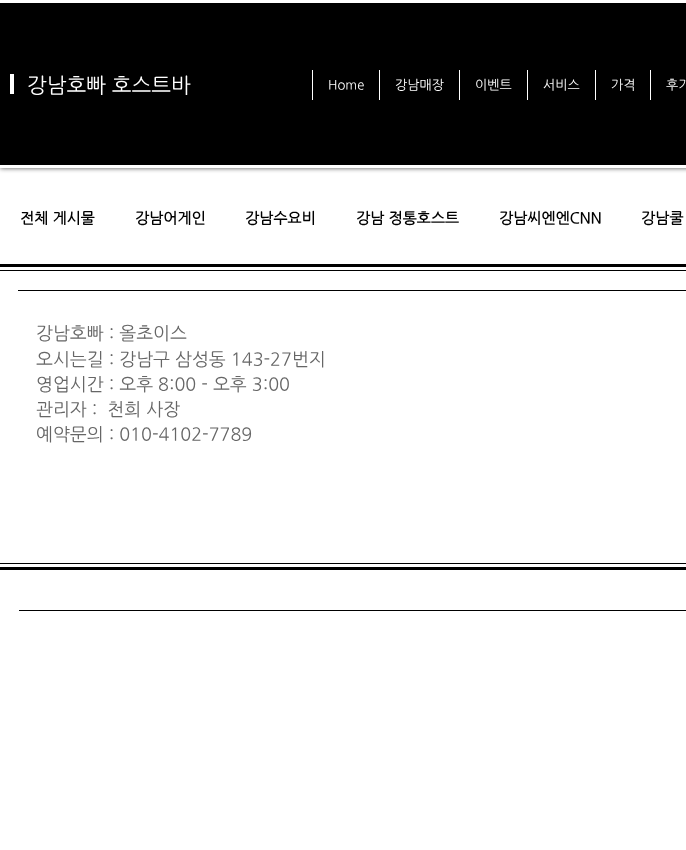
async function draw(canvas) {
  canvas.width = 686;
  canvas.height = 850;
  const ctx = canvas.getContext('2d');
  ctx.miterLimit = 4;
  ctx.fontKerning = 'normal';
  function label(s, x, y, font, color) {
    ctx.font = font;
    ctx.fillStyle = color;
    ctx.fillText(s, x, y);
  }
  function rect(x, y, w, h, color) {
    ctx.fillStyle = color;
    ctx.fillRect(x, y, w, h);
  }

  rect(0, 0, 686, 850, '#fff');
  ctx.fillStyle = '#000000b3';
  ctx.filter = 'blur(2.5px)';
  ctx.beginPath();
  ctx.rect(0, 0, 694, 168);
  ctx.fill();
  ctx.filter = 'none';
  rect(0, 3, 686, 162, '#000');
  rect(0, 0, 686, 3, '#fff');
  rect(0, 165, 686, 3, '#fff');
  rect(10, 74, 4, 20, '#fff');
  label('강남호빠 호스트바', 27, 92, '21px NanumGothic', '#fff');
  rect(312, 70, 1, 30, '#fff');
  label('Home', 328, 89, '13px NanumGothic', '#fff');
  rect(379, 70, 1, 30, '#fff');
  label('강남매장', 395, 89, '13px NanumGothic', '#fff');
  rect(459, 70, 1, 30, '#fff');
  label('이벤트', 475, 89, '13px NanumGothic', '#fff');
  rect(527, 70, 1, 30, '#fff');
  label('서비스', 543, 89, '13px NanumGothic', '#fff');
  rect(595, 70, 1, 30, '#fff');
  label('가격', 611, 89, '13px NanumGothic', '#fff');
  rect(650, 70, 1, 30, '#fff');
  label('후기', 666, 89, '13px NanumGothic', '#fff');
  label('전체 게시물', 20, 223, 'bold 15px NanumGothic', '#000');
  label('강남어게인', 135, 223, 'bold 15px NanumGothic', '#000');
  label('강남수요비', 245, 223, 'bold 15px NanumGothic', '#000');
  label('강남 정통호스트', 356, 223, 'bold 15px NanumGothic', '#000');
  label('강남씨엔엔CNN', 499, 223, 'bold 15px NanumGothic', '#000');
  label('강남쿨', 641, 223, 'bold 15px NanumGothic', '#000');
  rect(0, 264, 686, 3, '#000');
  rect(0, 567, 686, 3, '#000');
  rect(0, 270, 686, 1, '#000');
  rect(0, 563, 686, 1, '#000');
  rect(18, 290, 668, 1, '#000');
  label('강남호빠 : 올초이스', 36, 339, '18px NanumGothic', '#666');
  label('오시는길 : 강남구 삼성동 143-27번지', 36, 365, '18px NanumGothic', '#666');
  label('영업시간 : 오후 8:00 - 오후 3:00', 36, 390, '18px NanumGothic', '#666');
  label('관리자 :  천희 사장', 36, 415, '18px NanumGothic', '#666');
  label('예약문의 : 010-4102-7789', 36, 440, '18px NanumGothic', '#666');
  rect(19, 610, 667, 1, '#000');
}

draw(document.querySelector('canvas'));
